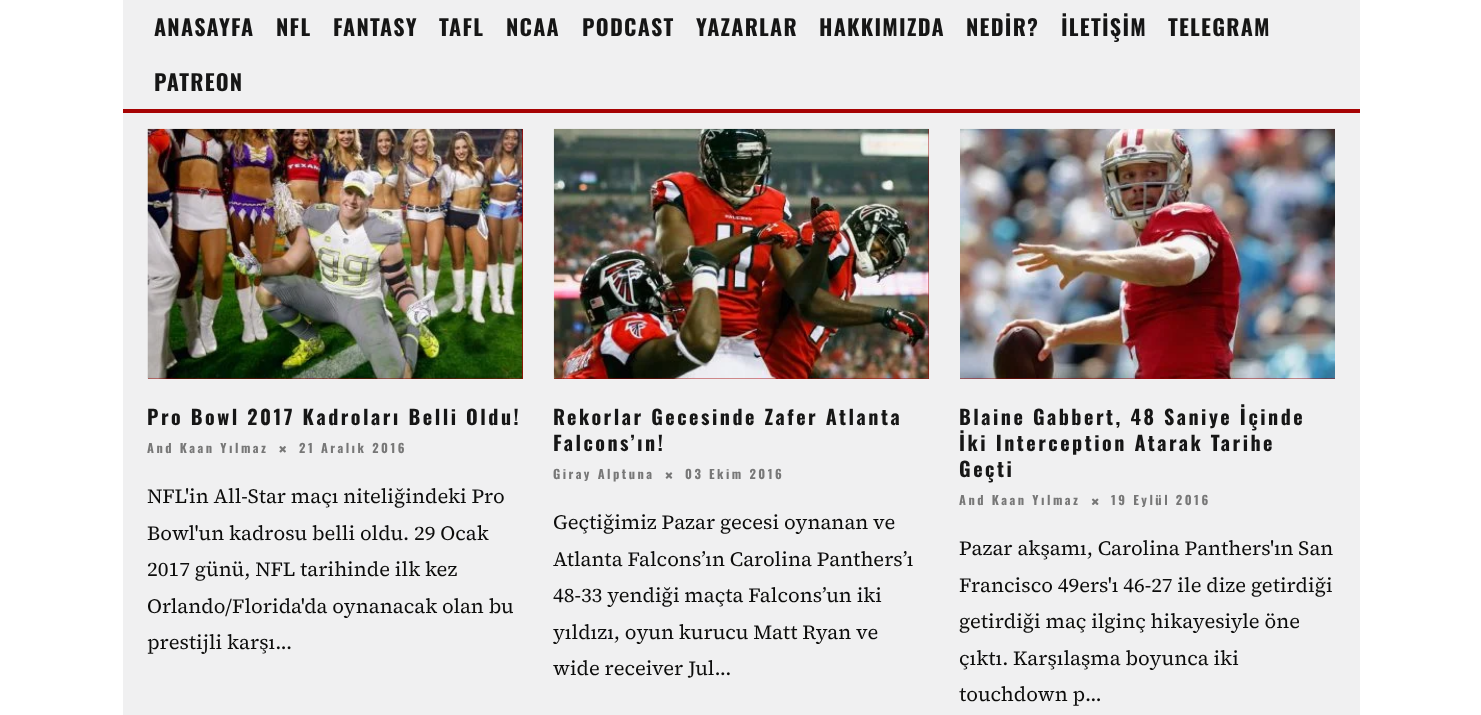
async function draw(canvas) {
  canvas.width = 1481;
  canvas.height = 715;
  const ctx = canvas.getContext('2d');
  ctx.miterLimit = 4;
  ctx.fontKerning = 'normal';
  function label(s, x, y, font, color) {
    ctx.font = font;
    ctx.fillStyle = color;
    ctx.fillText(s, x, y);
  }
  function rect(x, y, w, h, color) {
    ctx.fillStyle = color;
    ctx.fillRect(x, y, w, h);
  }
  async function image(src, x, y, w, h) {
    const img = new Image();
    img.src = src;
    await img.decode();
    ctx.drawImage(img, x, y, w, h);
  }

  rect(0, 0, 1481, 715, '#fff');
  rect(123, 0, 1237, 109, '#f0f0f1');
  rect(123, 109, 1237, 4, '#a60303');
  ctx.letterSpacing = '1.25px';
  label('ANASAYFA', 154, 36, 'bold 22px Oswald', '#161616');
  label('NFL', 276, 36, 'bold 22px Oswald', '#161616');
  label('FANTASY', 333, 36, 'bold 22px Oswald', '#161616');
  label('TAFL', 439, 36, 'bold 22px Oswald', '#161616');
  label('NCAA', 506, 36, 'bold 22px Oswald', '#161616');
  label('PODCAST', 582, 36, 'bold 22px Oswald', '#161616');
  label('YAZARLAR', 696, 36, 'bold 22px Oswald', '#161616');
  label('HAKKIMIZDA', 819, 36, 'bold 22px Oswald', '#161616');
  label('NEDİR?', 966, 36, 'bold 22px Oswald', '#161616');
  label('İLETİŞİM', 1061, 36, 'bold 22px Oswald', '#161616');
  label('TELEGRAM', 1168, 36, 'bold 22px Oswald', '#161616');
  label('PATREON', 154, 91, 'bold 22px Oswald', '#161616');
  rect(123, 113, 1237, 602, '#f0f0f1');
  rect(148, 129, 375, 250, '#a60303');
  await image('assets/img1.png', 147, 128, 376, 251);
  ctx.letterSpacing = '2.5px';
  label('Pro Bowl 2017 Kadroları Belli Oldu!', 147, 425, 'bold 20px Oswald', '#161616');
  label('And Kaan Yılmaz', 147, 453, 'bold 12.5px Oswald', '#777');
  await image('assets/img2.png', 279, 446, 7, 7);
  label('21 Aralık 2016', 299, 453, 'bold 12.5px Oswald', '#777');
  ctx.letterSpacing = '0px';
  label('NFL\'in All-Star maçı niteliğindeki Pro', 147, 503, '20.25px "Source Serif 4"', '#0c0c0b');
  label('Bowl\'un kadrosu belli oldu. 29 Ocak', 147, 540, '20.25px "Source Serif 4"', '#0c0c0b');
  label('2017 günü, NFL tarihinde ilk kez', 147, 576, '20.25px "Source Serif 4"', '#0c0c0b');
  label('Orlando/Florida\'da oynanacak olan bu', 147, 613, '20.25px "Source Serif 4"', '#0c0c0b');
  label('prestijli karşı...', 147, 649, '20.25px "Source Serif 4"', '#0c0c0b');
  rect(554, 129, 375, 250, '#a60303');
  await image('assets/img3.png', 553, 128, 376, 251);
  ctx.letterSpacing = '2.5px';
  label('Rekorlar Gecesinde Zafer Atlanta', 553, 425, 'bold 20px Oswald', '#161616');
  label('Falcons’ın!', 553, 451, 'bold 20px Oswald', '#161616');
  label('Giray Alptuna', 553, 479, 'bold 12.5px Oswald', '#777');
  await image('assets/img4.png', 665, 472, 8, 7);
  label('03 Ekim 2016', 685, 479, 'bold 12.5px Oswald', '#777');
  ctx.letterSpacing = '0px';
  label('Geçtiğimiz Pazar gecesi oynanan ve', 553, 529, '20.25px "Source Serif 4"', '#0c0c0b');
  label('Atlanta Falcons’ın Carolina Panthers’ı', 553, 566, '20.25px "Source Serif 4"', '#0c0c0b');
  label('48-33 yendiği maçta Falcons’un iki', 553, 602, '20.25px "Source Serif 4"', '#0c0c0b');
  label('yıldızı, oyun kurucu Matt Ryan ve', 553, 639, '20.25px "Source Serif 4"', '#0c0c0b');
  label('wide receiver Jul...', 553, 675, '20.25px "Source Serif 4"', '#0c0c0b');
  rect(960, 378, 375, 1, '#a60303');
  await image('assets/img5.png', 960, 128, 375, 251);
  ctx.letterSpacing = '2.5px';
  label('Blaine Gabbert, 48 Saniye İçinde', 959, 425, 'bold 20px Oswald', '#161616');
  label('İki Interception Atarak Tarihe', 959, 451, 'bold 20px Oswald', '#161616');
  label('Geçti', 959, 477, 'bold 20px Oswald', '#161616');
  label('And Kaan Yılmaz', 959, 505, 'bold 12.5px Oswald', '#777');
  await image('assets/img6.png', 1091, 498, 8, 7);
  label('19 Eylül 2016', 1111, 505, 'bold 12.5px Oswald', '#777');
  ctx.letterSpacing = '0px';
  label('Pazar akşamı, Carolina Panthers\'ın San', 959, 555, '20.25px "Source Serif 4"', '#0c0c0b');
  label('Francisco 49ers\'ı 46-27 ile dize getirdiği', 959, 592, '20.25px "Source Serif 4"', '#0c0c0b');
  label('getirdiği maç ilginç hikayesiyle öne', 959, 628, '20.25px "Source Serif 4"', '#0c0c0b');
  label('çıktı. Karşılaşma boyunca iki', 959, 665, '20.25px "Source Serif 4"', '#0c0c0b');
  label('touchdown p', 959, 701, '20.25px "Source Serif 4"', '#0c0c0b');
  label('...', 1085, 701, '20.25px "Source Serif 4"', '#0c0c0b');
}

draw(document.querySelector('canvas'));
